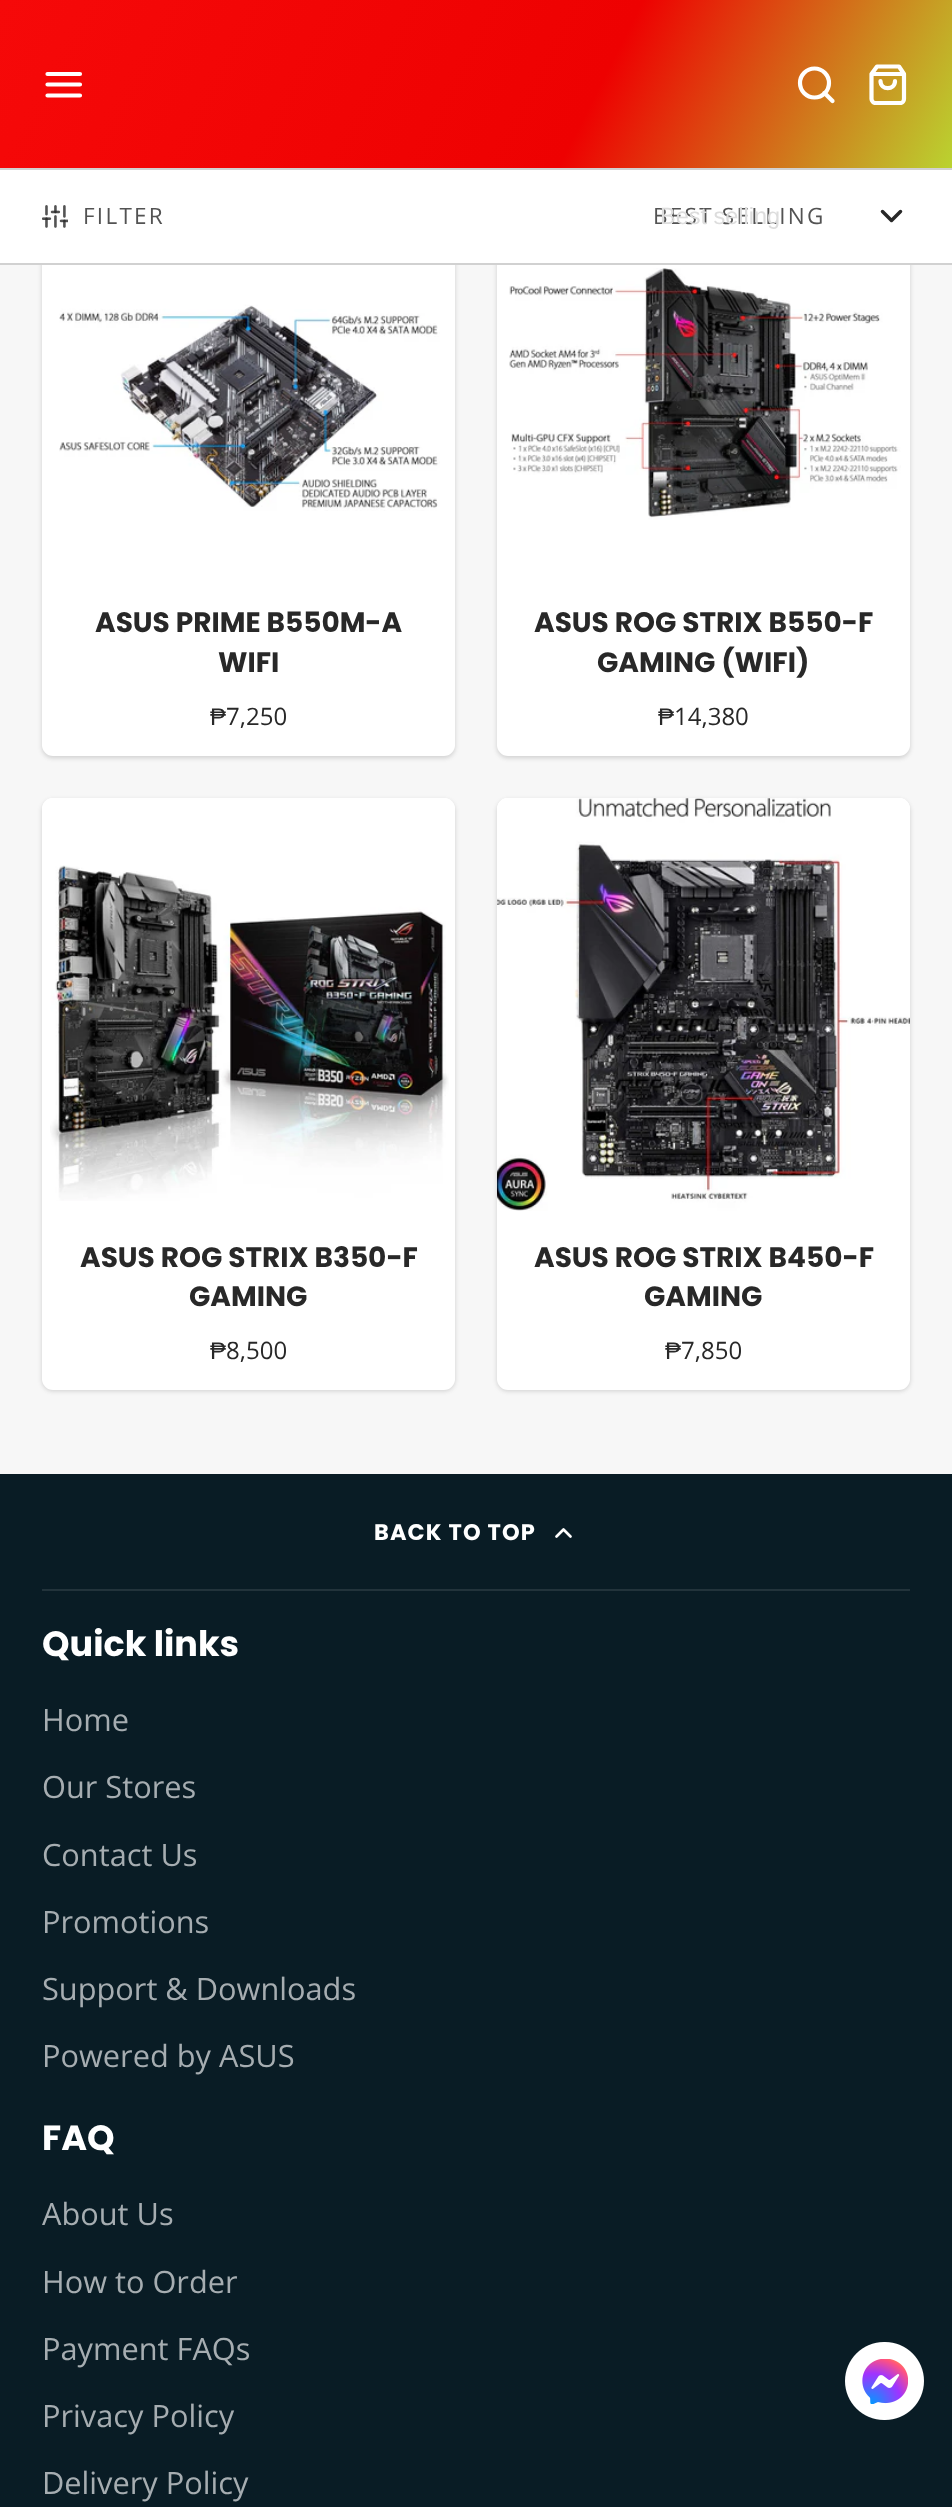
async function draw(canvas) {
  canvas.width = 952;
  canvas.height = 2507;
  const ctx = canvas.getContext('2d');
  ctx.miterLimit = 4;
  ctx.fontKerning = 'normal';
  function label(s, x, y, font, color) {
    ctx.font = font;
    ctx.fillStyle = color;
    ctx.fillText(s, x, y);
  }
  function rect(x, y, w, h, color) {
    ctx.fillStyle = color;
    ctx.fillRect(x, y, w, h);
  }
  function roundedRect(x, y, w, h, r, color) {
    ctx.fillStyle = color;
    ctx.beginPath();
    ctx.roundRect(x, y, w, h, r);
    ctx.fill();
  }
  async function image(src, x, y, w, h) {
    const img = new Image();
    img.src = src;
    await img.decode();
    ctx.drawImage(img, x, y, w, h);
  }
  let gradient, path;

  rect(0, 0, 952, 2507, '#f7f7f7');
  ctx.fillStyle = '#0000000f';
  ctx.filter = 'blur(2px)';
  ctx.beginPath();
  ctx.roundRect(42, 165, 413, 593, 11);
  ctx.fill();
  ctx.filter = 'none';
  ctx.fillStyle = '#0000001a';
  ctx.filter = 'blur(2.5px)';
  ctx.beginPath();
  ctx.roundRect(42, 165, 413, 593, 11);
  ctx.fill();
  ctx.filter = 'none';
  roundedRect(42, 163, 413, 593, 11, '#fff');
  roundedRect(42, 163, 413, 413, 11, '#fff');
  ctx.fillStyle = '#0000000f';
  ctx.filter = 'blur(2px)';
  ctx.beginPath();
  ctx.roundRect(497, 165, 413, 593, 11);
  ctx.fill();
  ctx.filter = 'none';
  ctx.fillStyle = '#0000001a';
  ctx.filter = 'blur(2.5px)';
  ctx.beginPath();
  ctx.roundRect(497, 165, 413, 593, 11);
  ctx.fill();
  ctx.filter = 'none';
  roundedRect(497, 163, 413, 593, 11, '#fff');
  roundedRect(497, 163, 413, 413, 11, '#fff');
  gradient = ctx.createLinearGradient(64, -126, 888, 294);
  gradient.addColorStop(0, '#f60909');
  gradient.addColorStop(0.62, '#ee0101');
  gradient.addColorStop(1, '#bad330');
  ctx.fillStyle = gradient;
  ctx.fillRect(0, 0, 952, 168);
  path = new Path2D('M47.5 84.5H80M47.5 74H80M47.5 95.5H80');
  ctx.strokeStyle = '#fff';
  ctx.lineWidth = 4.2;
  ctx.lineCap = 'round';
  ctx.lineJoin = 'round';
  ctx.stroke(path);
  ctx.beginPath();
  ctx.arc(814.5, 83, 14.5, 0, 2 * Math.PI);
  ctx.stroke();
  path = new Path2D('M832.5 101L824.5 93');
  ctx.stroke(path);
  ctx.save();
  ctx.beginPath();
  ctx.rect(866, 63, 44, 42);
  ctx.clip();
  path = new Path2D('M877 66.5L871.5 74V99C871.5 101 873.5 103 875.5 103H900.5C902.5 103 904 101 904 99V74L899 66.5ZM873 74H903M895 81C895 90.5 880.5 90.5 880.5 81');
  ctx.stroke(path);
  ctx.restore();
  rect(0, 170, 952, 93, '#fff');
  rect(0, 168, 952, 2, '#d1d1d1');
  rect(0, 263, 952, 2, '#d1d1d1');
  await image('assets/img1.png', 42, 205, 26, 23);
  ctx.letterSpacing = '2.25px';
  label('FILTER', 83, 224, '22.5px Open Sans', '#535353');
  label('BEST SELLING', 653, 224, '22.5px Open Sans', '#535353');
  path = new Path2D('M882.5 211.5L891.5 220.5L900.5 211.5');
  ctx.strokeStyle = '#282828';
  ctx.lineWidth = 3.5;
  ctx.stroke(path);
  ctx.letterSpacing = '0px';
  label('Best selling', 660, 224, '23.5px Liberation Sans', '#ddd');
  await image('assets/img2.png', 59, 265, 381, 246);
  label('ASUS PRIME B550M-A', 95, 632, 'bold 28px Poppins', '#282828');
  label('WIFI', 218, 672, 'bold 28px Poppins', '#282828');
  label('₱', 210, 725, '24px Liberation Sans', '#282828');
  label('7,250', 226, 725, '24px Open Sans', '#282828');
  await image('assets/img3.png', 509, 265, 392, 255);
  label('ASUS ROG STRIX B550-F', 534, 632, 'bold 28px Poppins', '#282828');
  label('GAMING (WIFI)', 597, 672, 'bold 28px Poppins', '#282828');
  label('₱', 658, 725, '24px Liberation Sans', '#282828');
  label('14,380', 674, 725, '24px Open Sans', '#282828');
  ctx.fillStyle = '#0000000f';
  ctx.filter = 'blur(2px)';
  ctx.beginPath();
  ctx.roundRect(42, 800, 413, 591, 11);
  ctx.fill();
  ctx.filter = 'none';
  ctx.fillStyle = '#0000001a';
  ctx.filter = 'blur(2.5px)';
  ctx.beginPath();
  ctx.roundRect(42, 800, 413, 591, 11);
  ctx.fill();
  ctx.filter = 'none';
  roundedRect(42, 798, 413, 592, 11, '#fff');
  roundedRect(42, 798, 413, 413, 11, '#fff');
  await image('assets/img4.png', 50, 865, 399, 336);
  label('ASUS ROG STRIX B350-F', 80, 1267, 'bold 28px Poppins', '#282828');
  label('GAMING', 189, 1306, 'bold 28px Poppins', '#282828');
  label('₱', 210, 1359, '24px Liberation Sans', '#282828');
  label('8,500', 226, 1359, '24px Open Sans', '#282828');
  ctx.fillStyle = '#0000000f';
  ctx.filter = 'blur(2px)';
  ctx.beginPath();
  ctx.roundRect(497, 800, 413, 591, 11);
  ctx.fill();
  ctx.filter = 'none';
  ctx.fillStyle = '#0000001a';
  ctx.filter = 'blur(2.5px)';
  ctx.beginPath();
  ctx.roundRect(497, 800, 413, 591, 11);
  ctx.fill();
  ctx.filter = 'none';
  roundedRect(497, 798, 413, 592, 11, '#fff');
  roundedRect(497, 798, 413, 413, 11, '#fff');
  await image('assets/img5.png', 497, 798, 413, 413);
  label('ASUS ROG STRIX B450-F', 534, 1267, 'bold 28px Poppins', '#282828');
  label('GAMING', 644, 1306, 'bold 28px Poppins', '#282828');
  label('₱', 665, 1359, '24px Liberation Sans', '#282828');
  label('7,850', 681, 1359, '24px Open Sans', '#282828');
  rect(0, 1474, 952, 1033, '#091c25');
  ctx.letterSpacing = '1.1px';
  label('BACK TO TOP', 374, 1540, 'bold 22.5px Poppins', '#fff');
  path = new Path2D('M570.5 1536.5L563.5 1529.5L556.5 1536.5');
  ctx.strokeStyle = '#fff';
  ctx.lineWidth = 2.7;
  ctx.stroke(path);
  rect(42, 1589, 868, 2, '#22333b');
  ctx.letterSpacing = '0px';
  label('Quick links', 42, 1656, 'bold 35px Poppins', '#fff');
  label('Home', 42, 1731, '30.75px Open Sans', '#a6adb1');
  label('Our Stores', 42, 1798, '30.75px Open Sans', '#a6adb1');
  label('Contact Us', 42, 1866, '30.75px Open Sans', '#a6adb1');
  label('Promotions', 42, 1933, '30.75px Open Sans', '#a6adb1');
  label('Support & Downloads', 42, 2000, '30.75px Open Sans', '#a6adb1');
  label('Powered by ASUS', 42, 2067, '30.75px Open Sans', '#a6adb1');
  label('FAQ', 42, 2150, 'bold 35px Poppins', '#fff');
  label('About Us', 42, 2225, '30.75px Open Sans', '#a6adb1');
  label('How to Order', 42, 2293, '30.75px Open Sans', '#a6adb1');
  label('Payment FAQs', 42, 2360, '30.75px Open Sans', '#a6adb1');
  label('Privacy Policy', 42, 2427, '30.75px Open Sans', '#a6adb1');
  label('Delivery Policy', 42, 2494, '30.75px Open Sans', '#a6adb1');
  await image('assets/img6.png', 845, 2342, 79, 78);
}

draw(document.querySelector('canvas'));
